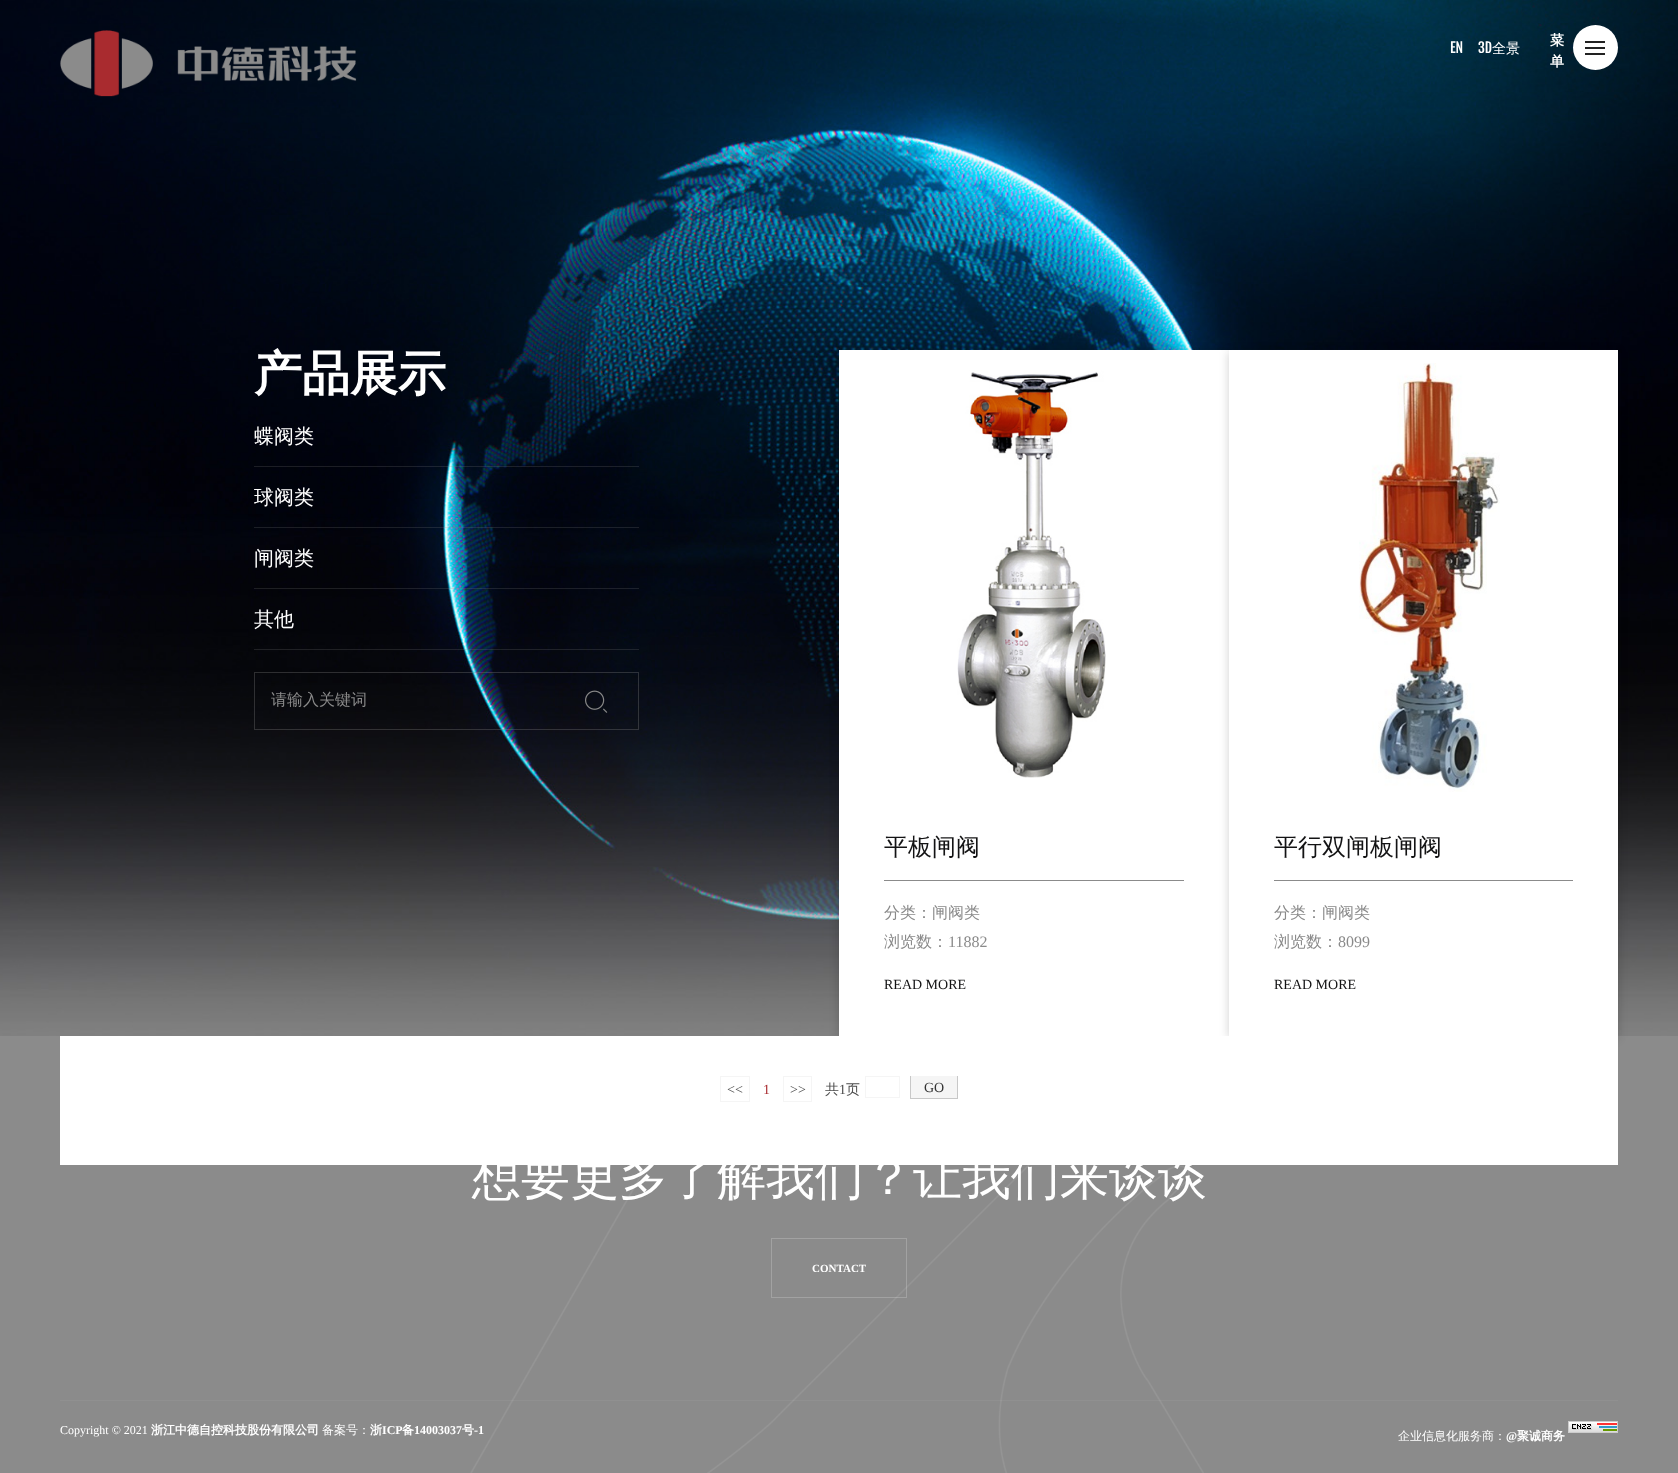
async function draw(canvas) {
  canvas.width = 1678;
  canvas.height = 1473;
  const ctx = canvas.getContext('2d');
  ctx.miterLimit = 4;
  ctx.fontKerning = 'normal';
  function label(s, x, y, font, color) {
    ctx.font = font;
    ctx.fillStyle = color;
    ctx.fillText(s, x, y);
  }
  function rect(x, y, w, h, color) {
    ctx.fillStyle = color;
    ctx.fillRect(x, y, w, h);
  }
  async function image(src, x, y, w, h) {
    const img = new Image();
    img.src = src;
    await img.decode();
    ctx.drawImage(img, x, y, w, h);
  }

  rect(0, 0, 1678, 1473, '#8b8b8b');
  await image('assets/img2.png', 0, 0, 1678, 1036);
  await image('assets/img1.png', 60, 30, 297, 67);
  label('EN', 1450, 53, '14px Fjalla One', '#fff');
  label('3D', 1478, 53, '14px Fjalla One', '#fff');
  label('全景', 1492, 53, '500 14px WenQuanYi Zen Hei', '#fff');
  label('菜', 1550, 45, 'bold 14px WenQuanYi Zen Hei', '#fff');
  label('单', 1550, 66, 'bold 14px WenQuanYi Zen Hei', '#fff');
  ctx.beginPath();
  ctx.arc(1595.5, 47.5, 22.5, 0, 2 * Math.PI);
  ctx.fill();
  rect(1585, 41, 20, 2, '#222');
  rect(1585, 47, 20, 2, '#222');
  rect(1585, 53, 20, 2, '#222');
  label('产品展示', 254, 390, 'bold 48px WenQuanYi Zen Hei', '#fff');
  rect(254, 466, 385, 1, '#8b8b8b33');
  label('蝶阀类', 254, 443, '500 20px WenQuanYi Zen Hei', '#fff');
  rect(254, 527, 385, 1, '#8b8b8b33');
  label('球阀类', 254, 504, '500 20px WenQuanYi Zen Hei', '#fff');
  rect(254, 588, 385, 1, '#8b8b8b33');
  label('闸阀类', 254, 565, '500 20px WenQuanYi Zen Hei', '#fff');
  rect(254, 649, 385, 1, '#8b8b8b33');
  label('其他', 254, 626, '500 20px WenQuanYi Zen Hei', '#fff');
  ctx.strokeStyle = '#8b8b8b4d';
  ctx.strokeRect(254.5, 672.5, 384, 57);
  label('请输入关键词', 271, 705, '500 16px WenQuanYi Zen Hei', '#8a8a8a');
  await image('assets/img3.png', 585, 690, 23, 23);
  ctx.fillStyle = '#0a0a0a33';
  ctx.filter = 'blur(5px)';
  ctx.beginPath();
  ctx.rect(839, 352, 390, 686);
  ctx.fill();
  ctx.filter = 'none';
  rect(839, 350, 390, 686, '#fff');
  await image('assets/img4.png', 957, 370, 149, 408);
  rect(884, 880, 300, 1, '#8b8b8b');
  label('平板闸阀', 884, 855, '500 24px WenQuanYi Zen Hei', '#131314');
  label('分类：闸阀类', 884, 918, '500 16px WenQuanYi Zen Hei', '#8a8a8a');
  label('浏览数：', 884, 947, '500 16px WenQuanYi Zen Hei', '#8a8a8a');
  label('11882', 948, 947, '16px Liberation Serif', '#8a8a8a');
  label('READ MORE', 884, 989, '14px Liberation Serif', '#131314');
  ctx.fillStyle = '#0a0a0a33';
  ctx.filter = 'blur(5px)';
  ctx.beginPath();
  ctx.rect(1229, 352, 389, 686);
  ctx.fill();
  ctx.filter = 'none';
  rect(1229, 350, 389, 686, '#fff');
  await image('assets/img5.png', 1359, 363, 141, 429);
  rect(1274, 880, 299, 1, '#8b8b8b');
  label('平行双闸板闸阀', 1274, 855, '500 24px WenQuanYi Zen Hei', '#131314');
  label('分类：闸阀类', 1274, 918, '500 16px WenQuanYi Zen Hei', '#8a8a8a');
  label('浏览数：', 1274, 947, '500 16px WenQuanYi Zen Hei', '#8a8a8a');
  label('8099', 1338, 947, '16px Liberation Serif', '#8a8a8a');
  label('READ MORE', 1274, 989, '14px Liberation Serif', '#131314');
  rect(60, 1036, 1558, 129, '#fff');
  ctx.strokeStyle = '#f5f5f5';
  ctx.strokeRect(720.5, 1076.5, 29, 25);
  label('<<', 727, 1094, '14px Liberation Serif', '#4c4c4c');
  label('1', 763, 1094, '14px Liberation Serif', '#a92b2f');
  ctx.strokeRect(783.5, 1076.5, 28, 25);
  label('>>', 790, 1094, '14px Liberation Serif', '#4c4c4c');
  label('共', 825, 1094, '500 14px WenQuanYi Zen Hei', '#4c4c4c');
  label('1', 839, 1094, '14px Liberation Serif', '#4c4c4c');
  label('页', 846, 1094, '500 14px WenQuanYi Zen Hei', '#4c4c4c');
  ctx.strokeRect(865.5, 1076.5, 34, 21);
  rect(911, 1076, 46, 22, '#f5f5f5');
  ctx.save();
  ctx.beginPath();
  ctx.rect(75, 1076, 1528, 29);
  ctx.clip();
  ctx.strokeStyle = '#c8c8c8';
  ctx.strokeRect(910.5, 1075.5, 47, 23);
  ctx.restore();
  label('GO', 924, 1092, '14px Liberation Serif', '#333');
  await image('assets/img6.png', 470, 1165, 734, 308);
  label('想要更多了解我们？让我们来谈谈', 472, 1194, '500 49px WenQuanYi Zen Hei', '#fff');
  ctx.strokeStyle = '#ffffff33';
  ctx.strokeRect(771.5, 1238.5, 135, 59);
  label('CONTACT', 812, 1272, 'bold 11px Liberation Serif', '#fff');
  rect(60, 1400, 1558, 1, '#ffffff0d');
  label('Copyright © 2021', 60, 1434, '12px Liberation Serif', '#fff');
  label('浙江中德自控科技股份有限公司', 151, 1434, 'bold 12px WenQuanYi Zen Hei', '#fff');
  label('备案号：', 322, 1434, '500 12px WenQuanYi Zen Hei', '#fff');
  label('浙', 370, 1434, 'bold 12px WenQuanYi Zen Hei', '#fff');
  label('ICP', 382, 1434, 'bold 12px Liberation Serif', '#fff');
  label('备', 402, 1434, 'bold 12px WenQuanYi Zen Hei', '#fff');
  label('14003037', 414, 1434, 'bold 12px Liberation Serif', '#fff');
  label('号', 462, 1434, 'bold 12px WenQuanYi Zen Hei', '#fff');
  label('-1', 474, 1434, 'bold 12px Liberation Serif', '#fff');
  await image('assets/img7.png', 1568, 1421, 50, 12);
  label('企业信息化服务商：', 1398, 1440, '500 12px WenQuanYi Zen Hei', '#fff');
  label('@', 1506, 1440, 'bold 12px Liberation Serif', '#fff');
  label('聚诚商务', 1517, 1440, 'bold 12px WenQuanYi Zen Hei', '#fff');
}

draw(document.querySelector('canvas'));
